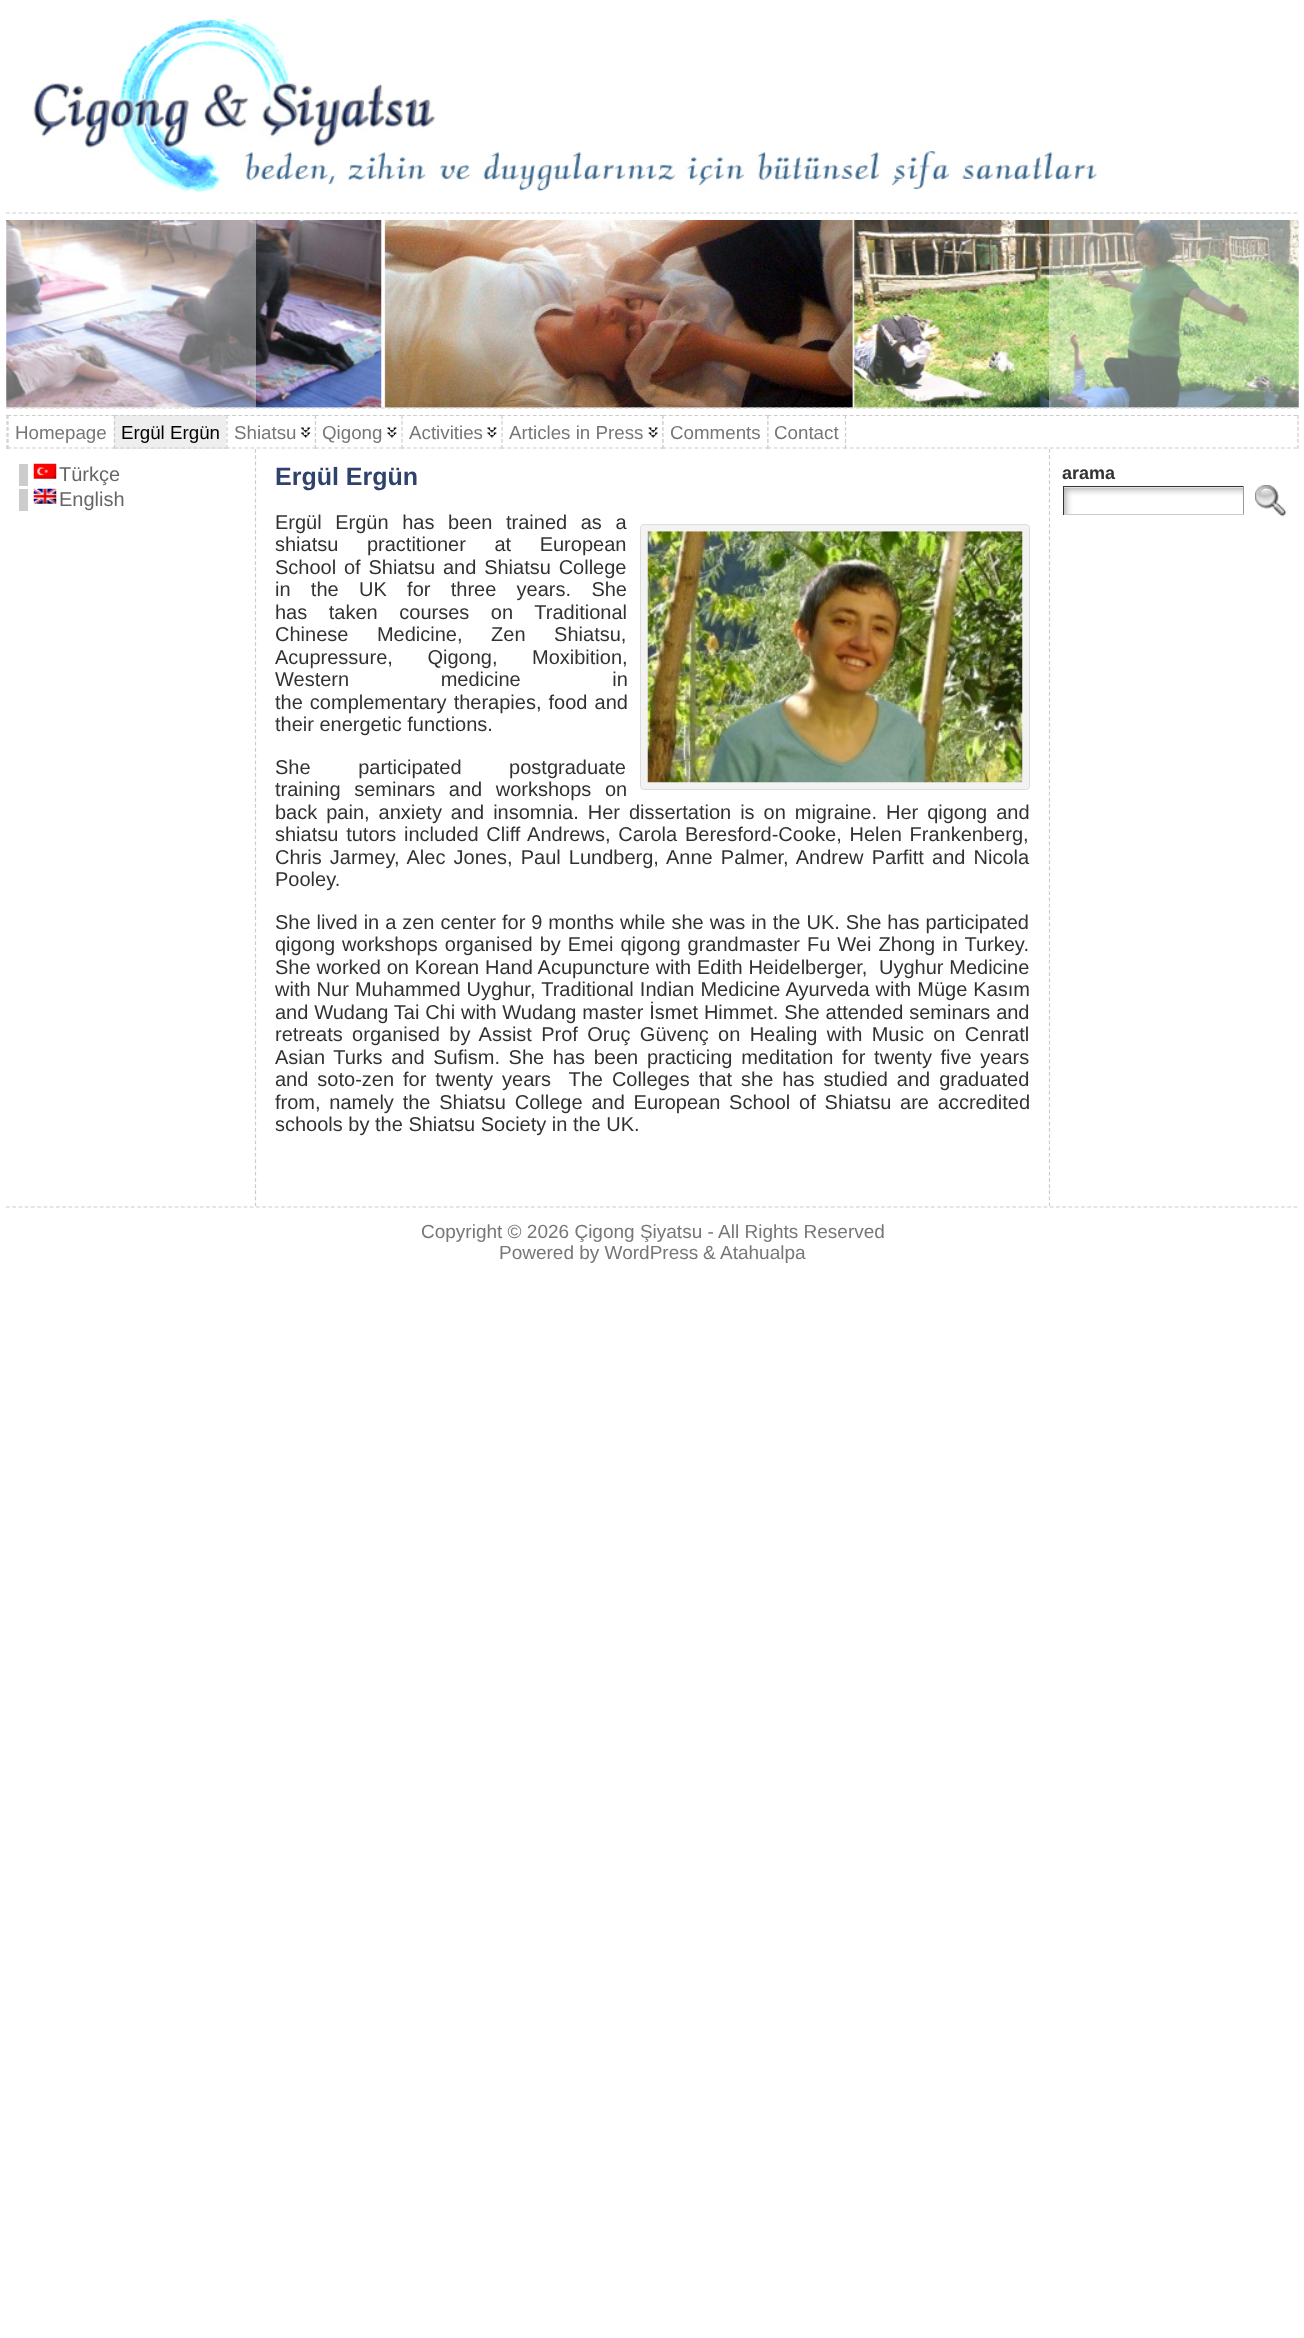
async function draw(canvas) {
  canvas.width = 1304;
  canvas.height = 2338;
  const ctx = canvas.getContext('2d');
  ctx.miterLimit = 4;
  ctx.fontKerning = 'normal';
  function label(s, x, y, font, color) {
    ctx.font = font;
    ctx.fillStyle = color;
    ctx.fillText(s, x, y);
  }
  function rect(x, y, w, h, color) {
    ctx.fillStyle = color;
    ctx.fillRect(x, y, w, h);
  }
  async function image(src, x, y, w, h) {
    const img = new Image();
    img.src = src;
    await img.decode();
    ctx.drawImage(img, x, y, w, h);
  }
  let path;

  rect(0, 0, 1304, 2338, '#fff');
  await image('assets/img1.png', 33, 17, 1064, 176);
  path = new Path2D('M6 213H1299');
  ctx.strokeStyle = '#ccc';
  ctx.lineWidth = 1.2;
  ctx.setLineDash([3.75, 2.5]);
  ctx.stroke(path);
  await image('assets/img2.png', 6, 220, 1293, 188);
  path = new Path2D('M6 408H1299');
  ctx.stroke(path);
  rect(6, 220, 250, 188, '#ffffff66');
  rect(1049, 220, 250, 188, '#ffffff66');
  path = new Path2D('M6 415.5H1299');
  ctx.stroke(path);
  rect(6, 414, 1293, 1, '#fff');
  path = new Path2D('M1298 415V449');
  ctx.setLineDash([3.75, 2.25]);
  ctx.stroke(path);
  path = new Path2D('M6 448H1299');
  ctx.setLineDash([3.75, 2.5]);
  ctx.stroke(path);
  path = new Path2D('M7 415V449');
  ctx.setLineDash([3.75, 2.25]);
  ctx.stroke(path);
  rect(8, 415, 106, 34, '#fff');
  path = new Path2D('M7.5 415.5H115');
  ctx.setLineDash([3.75, 2.35]);
  ctx.stroke(path);
  path = new Path2D('M114.5 415V449');
  ctx.setLineDash([3.75, 2.25]);
  ctx.stroke(path);
  path = new Path2D('M7.5 448H115');
  ctx.setLineDash([3.75, 2.35]);
  ctx.stroke(path);
  path = new Path2D('M8 415V449');
  ctx.setLineDash([3.75, 2.25]);
  ctx.stroke(path);
  label('Homepage', 15, 439, '18.75px Liberation Sans', '#777');
  rect(114, 415, 112, 34, '#eee');
  path = new Path2D('M114 415.5H227.5');
  ctx.setLineDash([3.75, 2.36]);
  ctx.stroke(path);
  path = new Path2D('M114 448H227.5');
  ctx.stroke(path);
  path = new Path2D('M114.5 415V449');
  ctx.setLineDash([3.75, 2.25]);
  ctx.stroke(path);
  label('Ergül Ergün', 121, 439, '18.75px Liberation Sans', '#000');
  rect(226, 415, 89, 34, '#fff');
  await image('assets/img3.png', 301, 427, 10, 11);
  path = new Path2D('M226 415.5H316');
  ctx.setLineDash([3.75, 2.41]);
  ctx.stroke(path);
  path = new Path2D('M315.5 415V449');
  ctx.setLineDash([3.75, 2.25]);
  ctx.stroke(path);
  path = new Path2D('M226 448H316');
  ctx.setLineDash([3.75, 2.41]);
  ctx.stroke(path);
  path = new Path2D('M227 415V449');
  ctx.setLineDash([3.75, 2.25]);
  ctx.stroke(path);
  label('Shiatsu', 234, 439, '18.75px Liberation Sans', '#777');
  rect(315, 415, 86, 34, '#fff');
  await image('assets/img4.png', 387, 427, 10, 11);
  path = new Path2D('M315 415.5H402.5');
  ctx.setLineDash([3.75, 2.69]);
  ctx.stroke(path);
  path = new Path2D('M315 448H402.5');
  ctx.stroke(path);
  path = new Path2D('M315.5 415V449');
  ctx.setLineDash([3.75, 2.25]);
  ctx.stroke(path);
  label('Qigong', 322, 439, '18.75px Liberation Sans', '#777');
  rect(401, 415, 100, 34, '#fff');
  await image('assets/img5.png', 487, 427, 10, 11);
  path = new Path2D('M401 415.5H502.5');
  ctx.setLineDash([3.75, 2.35]);
  ctx.stroke(path);
  path = new Path2D('M401 448H502.5');
  ctx.stroke(path);
  path = new Path2D('M402 415V449');
  ctx.setLineDash([3.75, 2.25]);
  ctx.stroke(path);
  label('Activities', 409, 439, '18.75px Liberation Sans', '#777');
  rect(501, 415, 162, 34, '#fff');
  await image('assets/img6.png', 648, 427, 10, 11);
  path = new Path2D('M501 415.5H664');
  ctx.setLineDash([3.75, 2.6]);
  ctx.stroke(path);
  path = new Path2D('M663 415V449');
  ctx.setLineDash([3.75, 2.25]);
  ctx.stroke(path);
  path = new Path2D('M501 448H664');
  ctx.setLineDash([3.75, 2.6]);
  ctx.stroke(path);
  path = new Path2D('M502 415V449');
  ctx.setLineDash([3.75, 2.25]);
  ctx.stroke(path);
  label('Articles in Press', 509, 439, '18.75px Liberation Sans', '#777');
  rect(663, 415, 103, 34, '#fff');
  path = new Path2D('M662.5 415.5H769');
  ctx.setLineDash([3.75, 2.65]);
  ctx.stroke(path);
  path = new Path2D('M768 415V449');
  ctx.setLineDash([3.75, 2.25]);
  ctx.stroke(path);
  path = new Path2D('M662.5 448H769');
  ctx.setLineDash([3.75, 2.65]);
  ctx.stroke(path);
  path = new Path2D('M663 415V449');
  ctx.setLineDash([3.75, 2.25]);
  ctx.stroke(path);
  label('Comments', 670, 439, '18.75px Liberation Sans', '#777');
  rect(768, 415, 78, 34, '#fff');
  path = new Path2D('M767.5 415.5H846');
  ctx.setLineDash([3.75, 2.5]);
  ctx.stroke(path);
  path = new Path2D('M845.5 415V449');
  ctx.setLineDash([3.75, 2.25]);
  ctx.stroke(path);
  path = new Path2D('M767.5 448H846');
  ctx.setLineDash([3.75, 2.5]);
  ctx.stroke(path);
  path = new Path2D('M768 415V449');
  ctx.setLineDash([3.75, 2.25]);
  ctx.stroke(path);
  label('Contact', 774, 439, '18.75px Liberation Sans', '#777');
  path = new Path2D('M255.5 449V1206');
  ctx.setLineDash([3.75, 2.48]);
  ctx.stroke(path);
  rect(19, 464, 9, 22, '#ccc');
  await image('assets/img7.png', 33, 463, 24, 16);
  label('Türkçe', 59, 481, '20px Liberation Sans', '#666');
  rect(19, 489, 9, 22, '#ccc');
  await image('assets/img8.png', 33, 488, 24, 16);
  label('English', 59, 506, '20px Liberation Sans', '#666');
  label('Ergül Ergün', 275, 485, 'bold 25px Liberation Sans', '#2f426d');
  ctx.wordSpacing = '8px';
  label('Ergül Ergün has been trained as a', 275, 529, '20px Liberation Sans', '#333132');
  ctx.fillStyle = '#f3f3f3';
  ctx.beginPath();
  ctx.roundRect(640.5, 524.5, 389, 265, 3.5);
  ctx.fill();
  ctx.strokeStyle = '#ddd';
  ctx.lineWidth = 1;
  ctx.setLineDash([]);
  ctx.stroke();
  await image('assets/img9.png', 647, 531, 376, 252);
  ctx.wordSpacing = '23px';
  label('shiatsu practitioner at European', 275, 551, '20px Liberation Sans', '#333132');
  ctx.wordSpacing = '2.25px';
  label('School of Shiatsu and Shiatsu College', 275, 574, '20px Liberation Sans', '#333132');
  ctx.wordSpacing = '14.75px';
  label('in the UK for three years. She', 275, 596, '20px Liberation Sans', '#333132');
  ctx.wordSpacing = '16px';
  label('has taken courses on Traditional', 275, 619, '20px Liberation Sans', '#333132');
  ctx.wordSpacing = '23px';
  label('Chinese Medicine, Zen Shiatsu,', 275, 641, '20px Liberation Sans', '#333132');
  ctx.wordSpacing = '29px';
  label('Acupressure, Qigong, Moxibition,', 275, 664, '20px Liberation Sans', '#333132');
  ctx.wordSpacing = '86px';
  label('Western medicine in', 275, 686, '20px Liberation Sans', '#333132');
  ctx.wordSpacing = '1.5px';
  label('the complementary therapies, food and', 275, 709, '20px Liberation Sans', '#333132');
  ctx.wordSpacing = '0px';
  label('their energetic functions.', 275, 731, '20px Liberation Sans', '#333132');
  ctx.wordSpacing = '42px';
  label('She participated postgraduate', 275, 774, '20px Liberation Sans', '#333132');
  ctx.wordSpacing = '8px';
  label('training seminars and workshops on', 275, 796, '20px Liberation Sans', '#333132');
  ctx.wordSpacing = '3.4px';
  label('back pain, anxiety and insomnia. Her dissertation is on migraine. Her qigong and', 275, 819, '20px Liberation Sans', '#333132');
  ctx.wordSpacing = '2.25px';
  label('shiatsu tutors included Cliff Andrews, Carola Beresford-Cooke, Helen Frankenberg,', 275, 841, '20px Liberation Sans', '#333132');
  ctx.wordSpacing = '2.6px';
  label('Chris Jarmey, Alec Jones, Paul Lundberg, Anne Palmer, Andrew Parfitt and Nicola', 275, 864, '20px Liberation Sans', '#333132');
  ctx.wordSpacing = '0px';
  label('Pooley.', 275, 886, '20px Liberation Sans', '#333132');
  ctx.wordSpacing = '0.4px';
  label('She lived in a zen center for 9 months while she was in the UK. She has participated', 275, 929, '20px Liberation Sans', '#333132');
  ctx.wordSpacing = '1.5px';
  label('qigong workshops organised by Emei qigong grandmaster Fu Wei Zhong in Turkey.', 275, 951, '20px Liberation Sans', '#333132');
  ctx.wordSpacing = '0.25px';
  label('She worked on Korean Hand Acupuncture with Edith Heidelberger,  Uyghur Medicine', 275, 974, '20px Liberation Sans', '#333132');
  ctx.wordSpacing = '0.5px';
  label('with Nur Muhammed Uyghur, Traditional Indian Medicine Ayurveda with Müge Kasım', 275, 996, '20px Liberation Sans', '#333132');
  ctx.wordSpacing = '0.25px';
  label('and Wudang Tai Chi with Wudang master İsmet Himmet. She attended seminars and', 275, 1019, '20px Liberation Sans', '#333132');
  ctx.wordSpacing = '3.75px';
  label('retreats organised by Assist Prof Oruç Güvenç on Healing with Music on Cenratl', 275, 1041, '20px Liberation Sans', '#333132');
  ctx.wordSpacing = '3.1px';
  label('Asian Turks and Sufism. She has been practicing meditation for twenty five years', 275, 1064, '20px Liberation Sans', '#333132');
  ctx.wordSpacing = '3.4px';
  label('and soto-zen for twenty years  The Colleges that she has studied and graduated', 275, 1086, '20px Liberation Sans', '#333132');
  ctx.wordSpacing = '3.25px';
  label('from, namely the Shiatsu College and European School of Shiatsu are accredited', 275, 1109, '20px Liberation Sans', '#333132');
  ctx.wordSpacing = '0px';
  label('schools by the Shiatsu Society in the UK.', 275, 1131, '20px Liberation Sans', '#333132');
  path = new Path2D('M1049.5 449V1206');
  ctx.strokeStyle = '#ccc';
  ctx.lineWidth = 1.2;
  ctx.setLineDash([3.75, 2.48]);
  ctx.stroke(path);
  label('arama', 1062, 479, 'bold 18px Liberation Sans', '#333132');
  await image('assets/img10.png', 1064, 487, 179, 27);
  rect(1063, 486, 181, 1, '#333');
  rect(1243, 486, 1, 29, '#999');
  rect(1063, 514, 181, 1, '#ccc');
  rect(1063, 486, 1, 29, '#333');
  await image('assets/img11.png', 1255, 485, 32, 32);
  path = new Path2D('M6 1207H1299');
  ctx.setLineDash([3.75, 2.5]);
  ctx.stroke(path);
  label('Copyright © 2026 Çigong Şiyatsu - All Rights Reserved', 421, 1238, '19px Liberation Sans', '#777');
  label('Powered by WordPress', 499, 1259, '19px Liberation Sans', '#777');
  label('&', 703, 1259, '19px Liberation Sans', '#777');
  label('Atahualpa', 720, 1259, '19px Liberation Sans', '#777');
}

draw(document.querySelector('canvas'));
